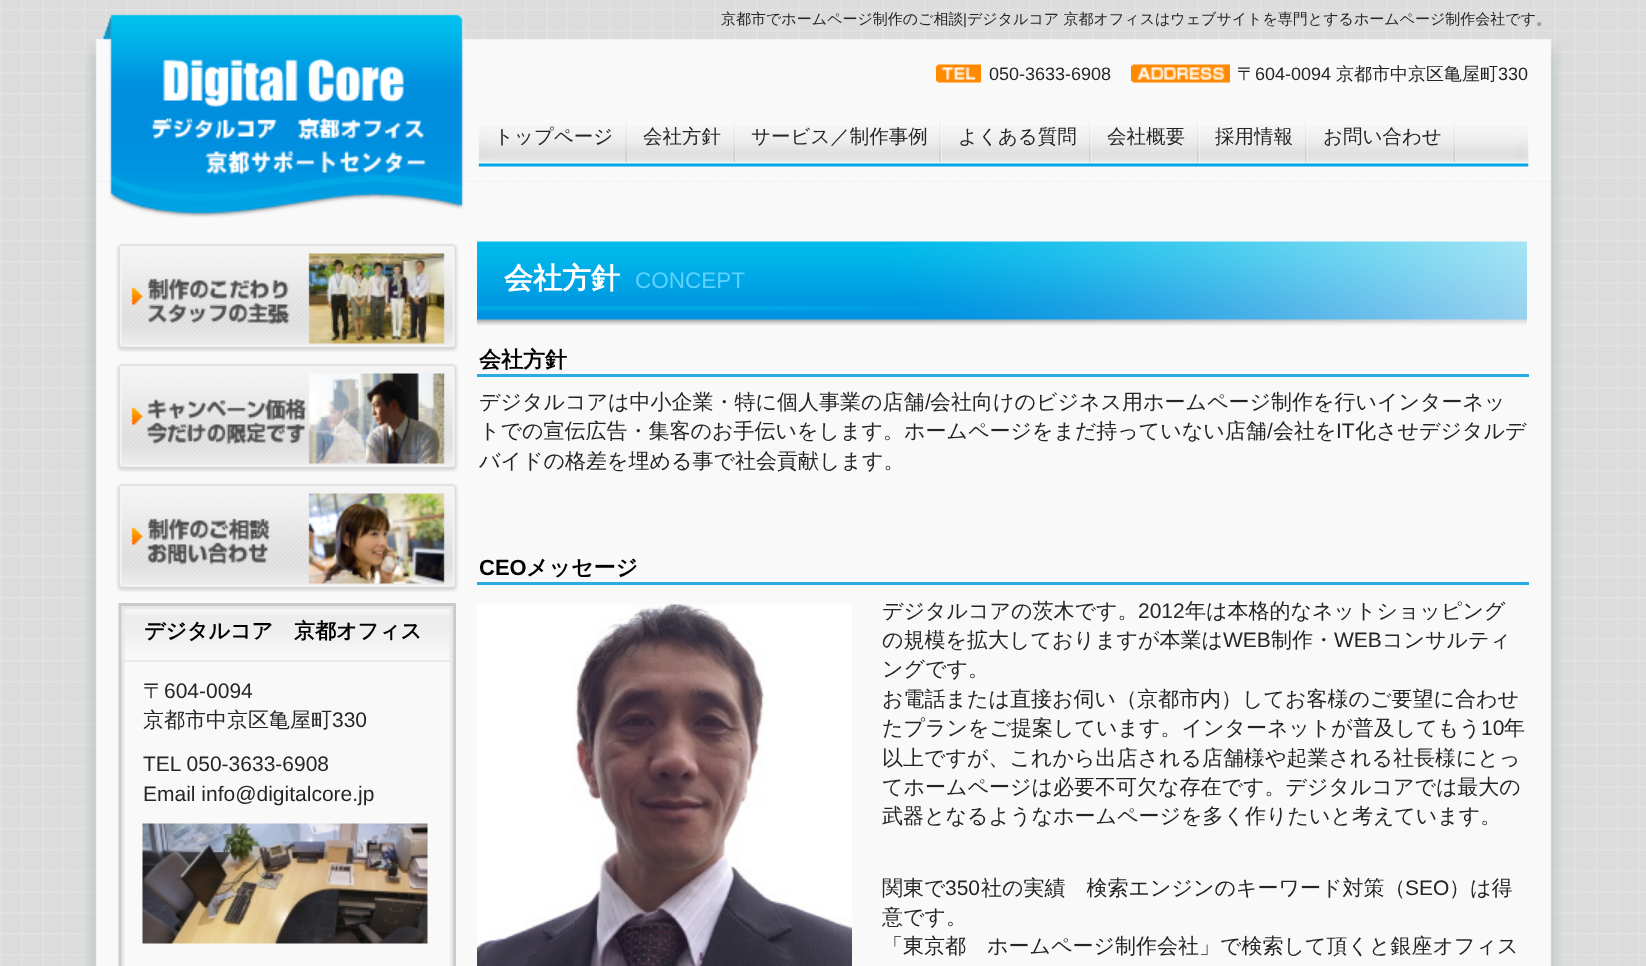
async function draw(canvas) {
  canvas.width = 1646;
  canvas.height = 966;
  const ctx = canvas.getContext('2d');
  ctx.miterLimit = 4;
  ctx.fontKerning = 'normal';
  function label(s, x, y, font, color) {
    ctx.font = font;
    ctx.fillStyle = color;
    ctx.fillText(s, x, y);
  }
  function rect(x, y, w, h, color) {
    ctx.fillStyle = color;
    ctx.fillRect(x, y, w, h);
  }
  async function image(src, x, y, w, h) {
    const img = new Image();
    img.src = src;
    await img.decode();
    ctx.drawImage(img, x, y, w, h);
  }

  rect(0, 0, 1646, 966, '#fff');
  await image('assets/img1.png', 0, 0, 1646, 966);
  await image('assets/img2.png', 84, 39, 1478, 143);
  await image('assets/img6.png', 84, 181, 1478, 785);
  await image('assets/img3.png', 102, 14, 363, 204);
  label('京都市でホームページ制作のご相談', 721, 24, '500 15px WenQuanYi Zen Hei', '#252525');
  label('|', 963, 24, '15px Liberation Sans', '#252525');
  label('デジタルコア 京都オフィスはウェブサイトを専門とするホームページ制作会社です。', 967, 24, '500 15px WenQuanYi Zen Hei', '#252525');
  await image('assets/img4.png', 936, 64, 45, 19);
  label('050-3633-6908', 989, 80, '18px Liberation Sans', '#252525');
  await image('assets/img5.png', 1131, 64, 99, 19);
  label('〒', 1237, 80, '500 18px WenQuanYi Zen Hei', '#252525');
  label('604-0094', 1255, 80, '18px Liberation Sans', '#252525');
  label('京都市中京区亀屋町', 1336, 80, '500 18px WenQuanYi Zen Hei', '#252525');
  label('330', 1498, 80, '18px Liberation Sans', '#252525');
  await image('assets/img7.png', 478, 125, 1051, 42);
  await image('assets/img8.png', 625, 117, 3, 46);
  label('トップページ', 494, 143, '500 19.5px WenQuanYi Zen Hei', '#252525');
  await image('assets/img9.png', 733, 117, 3, 46);
  label('会社方針', 643, 143, '500 19.5px WenQuanYi Zen Hei', '#252525');
  await image('assets/img10.png', 939, 116, 3, 47);
  label('サービス／制作事例', 751, 143, '500 19.5px WenQuanYi Zen Hei', '#252525');
  await image('assets/img11.png', 1089, 116, 3, 47);
  label('よくある質問', 958, 143, '500 19.5px WenQuanYi Zen Hei', '#252525');
  await image('assets/img11.png', 1197, 116, 3, 47);
  label('会社概要', 1107, 143, '500 19.5px WenQuanYi Zen Hei', '#252525');
  await image('assets/img11.png', 1305, 116, 3, 47);
  label('採用情報', 1215, 143, '500 19.5px WenQuanYi Zen Hei', '#252525');
  await image('assets/img9.png', 1453, 117, 3, 46);
  label('お問い合わせ', 1323, 143, '500 19.5px WenQuanYi Zen Hei', '#252525');
  await image('assets/img12.png', 116, 243, 343, 109);
  await image('assets/img13.png', 116, 363, 343, 109);
  await image('assets/img14.png', 116, 483, 343, 109);
  await image('assets/img15.png', 118, 603, 338, 363);
  await image('assets/img16.png', 121, 603, 332, 59);
  rect(122, 660, 331, 2, '#e9e9e9');
  label('デジタルコア　京都オフィス', 144, 638, 'bold 21px WenQuanYi Zen Hei', '#000');
  label('〒', 143, 698, '500 21px WenQuanYi Zen Hei', '#252525');
  label('604-0094', 164, 698, '21px Liberation Sans', '#252525');
  label('京都市中京区亀屋町', 143, 727, '500 21px WenQuanYi Zen Hei', '#252525');
  label('330', 332, 727, '21px Liberation Sans', '#252525');
  label('TEL 050-3633-6908', 143, 771, '21px Liberation Sans', '#252525');
  label('Email info@digitalcore.jp', 143, 801, '21px Liberation Sans', '#252525');
  await image('assets/img17.png', 142, 823, 286, 121);
  await image('assets/img18.png', 477, 241, 1050, 85);
  label('会社方針', 504, 288, 'bold 29px WenQuanYi Zen Hei', '#fff');
  label('CONCEPT', 635, 288, '22.5px Liberation Sans', '#5cd3fe');
  rect(477, 374, 1052, 3, '#2cabe2');
  label('会社方針', 479, 367, 'bold 22px WenQuanYi Zen Hei', '#000');
  label('デジタルコアは中小企業・特に個人事業の店舗', 479, 409, '500 21px WenQuanYi Zen Hei', '#252525');
  label('/', 925, 409, '21px Liberation Sans', '#252525');
  label('会社向けのビジネス用ホームページ制作を行いインターネッ', 930, 409, '500 21px WenQuanYi Zen Hei', '#252525');
  label('トでの宣伝広告・集客のお手伝いをします。ホームページをまだ持っていない店舗', 479, 438, '500 21px WenQuanYi Zen Hei', '#252525');
  label('/', 1267, 438, '21px Liberation Sans', '#252525');
  label('会社を', 1273, 438, '500 21px WenQuanYi Zen Hei', '#252525');
  label('IT', 1336, 438, '21px Liberation Sans', '#252525');
  label('化させデジタルデ', 1355, 438, '500 21px WenQuanYi Zen Hei', '#252525');
  label('バイドの格差を埋める事で社会貢献します。', 479, 468, '500 21px WenQuanYi Zen Hei', '#252525');
  rect(477, 582, 1052, 3, '#2cabe2');
  label('CEO', 479, 575, 'bold 22px Liberation Sans', '#000');
  label('メッセージ', 526, 575, 'bold 22px WenQuanYi Zen Hei', '#000');
  await image('assets/img19.png', 477, 604, 375, 362);
  label('デジタルコアの茨木です。', 882, 618, '500 21px WenQuanYi Zen Hei', '#252525');
  label('2012', 1138, 618, '21px Liberation Sans', '#252525');
  label('年は本格的なネットショッピング', 1185, 618, '500 21px WenQuanYi Zen Hei', '#252525');
  label('の規模を拡大しておりますが本業は', 882, 647, '500 21px WenQuanYi Zen Hei', '#252525');
  label('WEB', 1223, 647, '21px Liberation Sans', '#252525');
  label('制作・', 1271, 647, '500 21px WenQuanYi Zen Hei', '#252525');
  label('WEB', 1334, 647, '21px Liberation Sans', '#252525');
  label('コンサルティ', 1382, 647, '500 21px WenQuanYi Zen Hei', '#252525');
  label('ングです。', 882, 676, '500 21px WenQuanYi Zen Hei', '#252525');
  label('お電話または直接お伺い（京都市内）してお客様のご要望に合わせ', 882, 706, '500 21px WenQuanYi Zen Hei', '#252525');
  label('たプランをご提案しています。インターネットが普及してもう', 882, 735, '500 21px WenQuanYi Zen Hei', '#252525');
  label('10', 1481, 735, '21px Liberation Sans', '#252525');
  label('年', 1504, 735, '500 21px WenQuanYi Zen Hei', '#252525');
  label('以上ですが、これから出店される店舗様や起業される社長様にとっ', 882, 765, '500 21px WenQuanYi Zen Hei', '#252525');
  label('てホームページは必要不可欠な存在です。デジタルコアでは最大の', 882, 794, '500 21px WenQuanYi Zen Hei', '#252525');
  label('武器となるようなホームページを多く作りたいと考えています。', 882, 823, '500 21px WenQuanYi Zen Hei', '#252525');
  label('関東で', 882, 895, '500 21px WenQuanYi Zen Hei', '#252525');
  label('350', 945, 895, '21px Liberation Sans', '#252525');
  label('社の実績　検索エンジンのキーワード対策（', 981, 895, '500 21px WenQuanYi Zen Hei', '#252525');
  label('SEO', 1405, 895, '21px Liberation Sans', '#252525');
  label('）は得', 1449, 895, '500 21px WenQuanYi Zen Hei', '#252525');
  label('意です。', 882, 924, '500 21px WenQuanYi Zen Hei', '#252525');
  label('「東京都　ホームページ制作会社」で検索して頂くと銀座オフィス', 882, 953, '500 21px WenQuanYi Zen Hei', '#252525');
}

draw(document.querySelector('canvas'));
